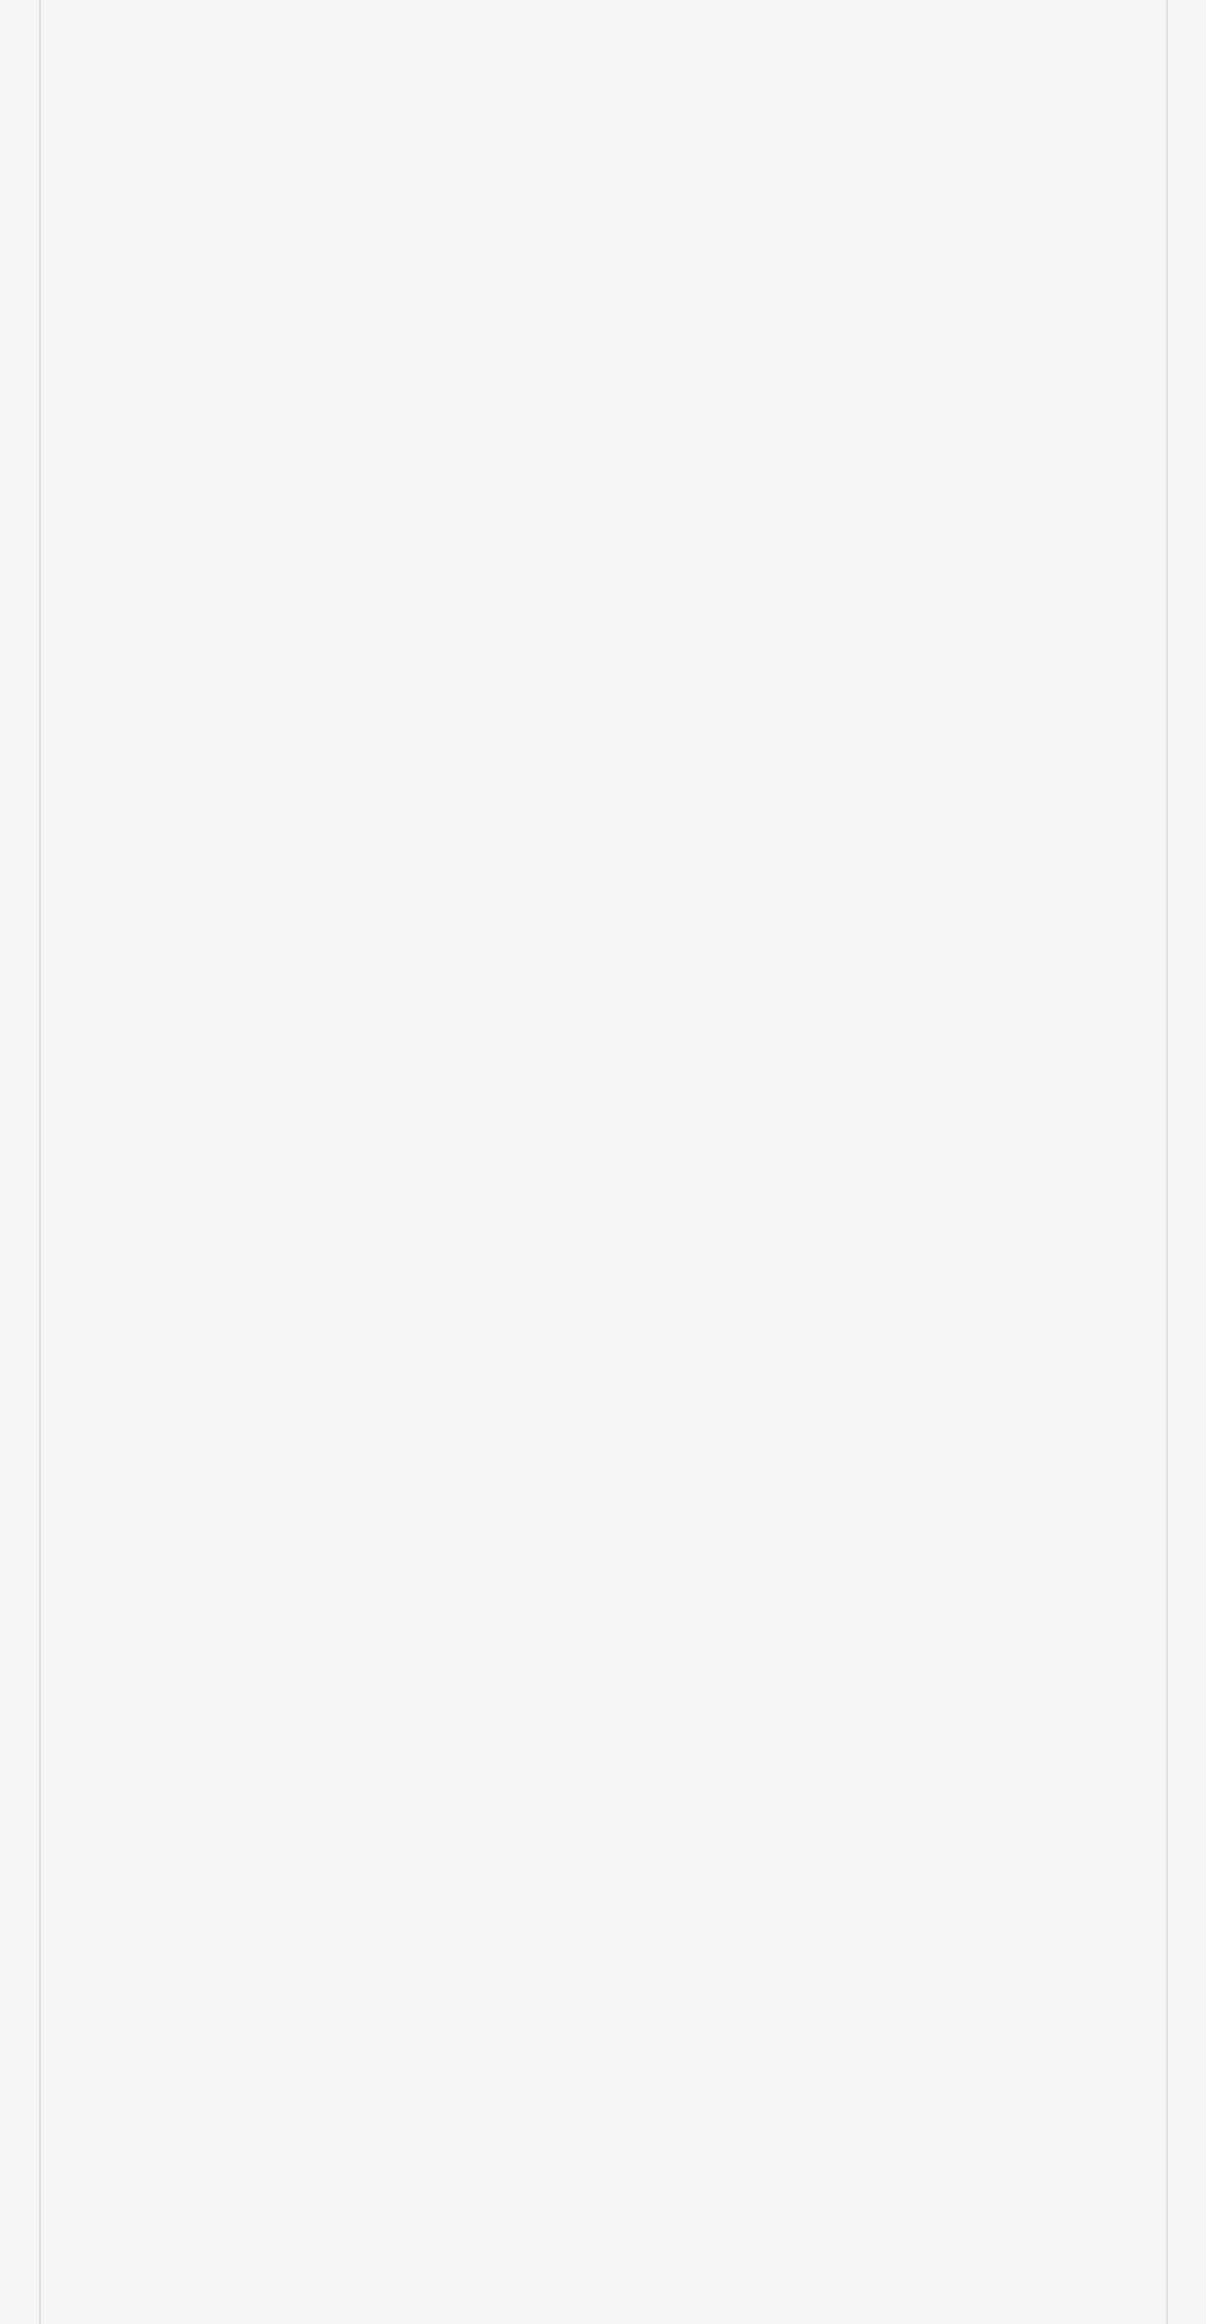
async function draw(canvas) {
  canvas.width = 1206;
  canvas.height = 2324;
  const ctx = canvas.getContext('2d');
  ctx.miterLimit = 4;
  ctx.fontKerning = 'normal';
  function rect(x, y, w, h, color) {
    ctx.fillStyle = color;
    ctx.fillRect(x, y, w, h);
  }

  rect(0, 0, 1206, 2324, '#f5f5f5');
  rect(1166, 0, 2, 2324, '#e0e0e0');
  rect(39, 0, 2, 2324, '#e0e0e0');
}

draw(document.querySelector('canvas'));
